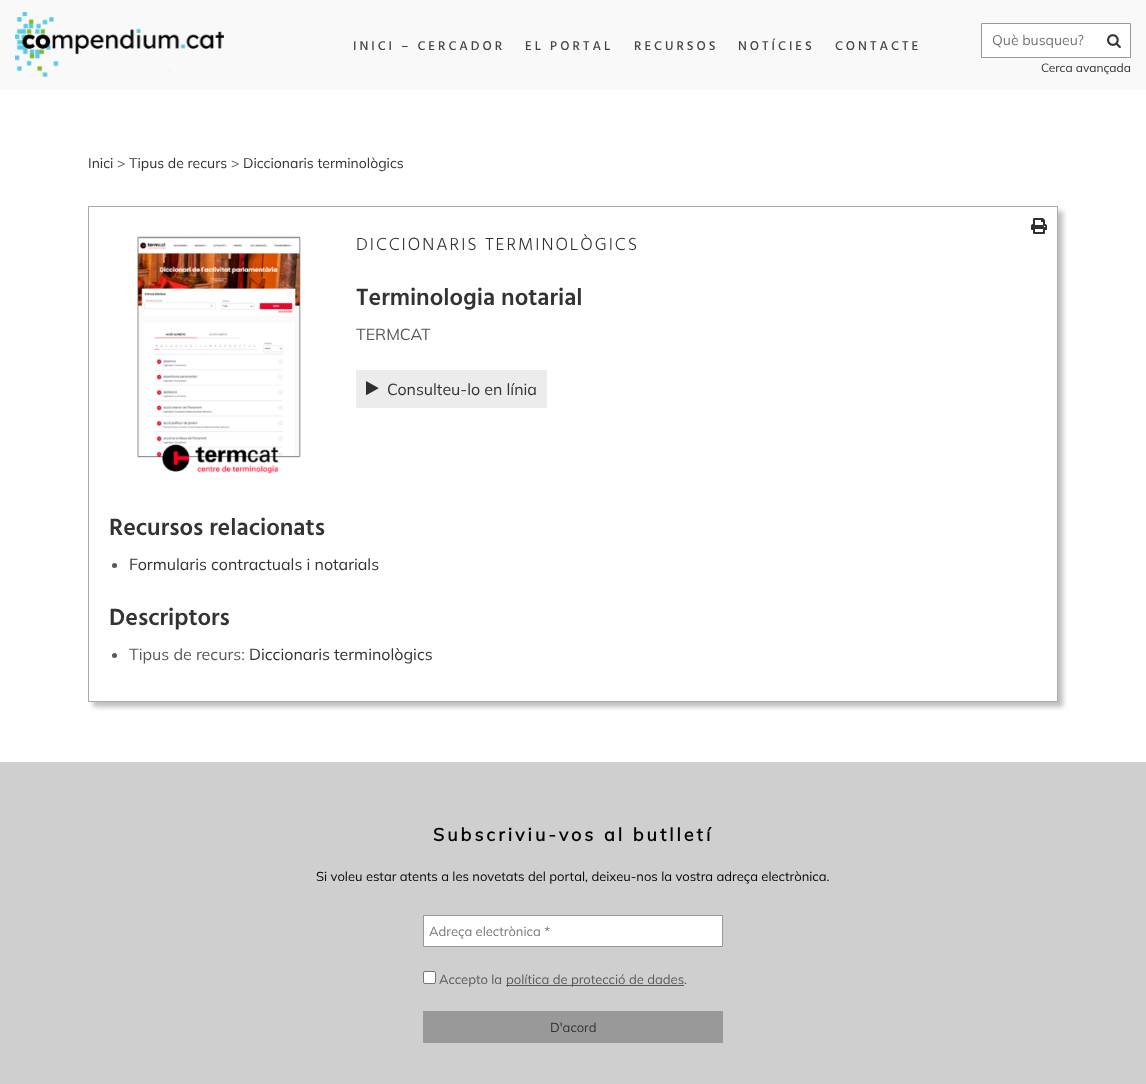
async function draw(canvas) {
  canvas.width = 1146;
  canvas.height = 1084;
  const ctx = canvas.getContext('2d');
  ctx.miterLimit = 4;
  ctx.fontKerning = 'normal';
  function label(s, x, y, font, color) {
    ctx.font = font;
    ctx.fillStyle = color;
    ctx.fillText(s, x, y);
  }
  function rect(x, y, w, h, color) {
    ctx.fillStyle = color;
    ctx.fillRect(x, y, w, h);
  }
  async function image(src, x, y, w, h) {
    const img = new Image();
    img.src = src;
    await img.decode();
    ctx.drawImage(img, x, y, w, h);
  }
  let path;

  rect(0, 0, 1146, 1084, '#fff');
  rect(0, 0, 1146, 90, '#f9f9f9');
  await image('assets/img1.png', 15, 12, 209, 65);
  ctx.letterSpacing = '3px';
  label('INICI – CERCADOR', 353, 50, '500 13px Hind', '#444');
  label('EL PORTAL', 525, 50, '500 13px Hind', '#444');
  label('RECURSOS', 634, 50, '500 13px Hind', '#444');
  label('NOTÍCIES', 738, 50, '500 13px Hind', '#444');
  label('CONTACTE', 835, 50, '500 13px Hind', '#444');
  ctx.fillStyle = '#fff';
  ctx.beginPath();
  ctx.rect(981.5, 23.5, 149, 34);
  ctx.fill();
  ctx.strokeStyle = '#999';
  ctx.stroke();
  ctx.letterSpacing = '0px';
  label('Què busqueu?', 992, 45, '14px Mulish', '#757575');
  await image('assets/img2.png', 1107, 34, 14, 15);
  label('Cerca avançada', 1041, 72, '12px Mulish', '#333');
  label('Inici', 88, 168, '14px Mulish', '#333');
  label('>', 117, 168, '14px Mulish', '#595959');
  label('Tipus de recurs', 129, 168, '14px Mulish', '#333');
  label('>', 231, 168, '14px Mulish', '#595959');
  label('Diccionaris terminològics', 243, 168, '14px Mulish', '#333');
  ctx.save();
  path = new Path2D('M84 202H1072V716H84ZM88 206H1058V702H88Z');
  ctx.clip(path, 'evenodd');
  ctx.fillStyle = '#00000040';
  ctx.filter = 'blur(2.5px)';
  ctx.beginPath();
  ctx.rect(93, 211, 970, 496);
  ctx.fill();
  ctx.filter = 'none';
  ctx.restore();
  ctx.strokeStyle = '#aaa';
  ctx.strokeRect(88.5, 206.5, 969, 495);
  await image('assets/img3.png', 1031, 218, 16, 16);
  await image('assets/img4.png', 137, 236, 164, 238);
  ctx.letterSpacing = '2px';
  label('DICCIONARIS TERMINOLÒGICS', 356, 250, '300 18px Hind', '#333');
  ctx.letterSpacing = '0px';
  label('Terminologia notarial', 356, 305, '600 24px Hind', '#333');
  label('TERMCAT', 356, 340, '16px Mulish', '#595959');
  rect(356, 370, 191, 38, '#ececec');
  await image('assets/img5.png', 366, 381, 13, 14);
  label('Consulteu-lo en línia', 387, 395, '16px Mulish', '#333');
  label('Recursos relacionats', 109, 535, '600 24px Hind', '#333');
  ctx.fillStyle = '#595959';
  ctx.beginPath();
  ctx.arc(114.5, 565.5, 2.5, 0, 2 * Math.PI);
  ctx.fill();
  label('Formularis contractuals i notarials', 129, 570, '16px Mulish', '#333');
  label('Descriptors', 109, 625, '600 24px Hind', '#333');
  ctx.fillStyle = '#595959';
  ctx.beginPath();
  ctx.arc(114.5, 655.5, 2.5, 0, 2 * Math.PI);
  ctx.fill();
  label('Tipus de recurs:', 129, 660, '16px Mulish', '#595959');
  label('Diccionaris terminològics', 249, 660, '16px Mulish', '#333');
  rect(0, 762, 1146, 322, '#cfcfcf');
  ctx.letterSpacing = '3px';
  label('Subscriviu-vos al butlletí', 433, 841, 'bold 18px Mulish', '#040404');
  ctx.letterSpacing = '0px';
  label('Si voleu estar atents a les novetats del portal, deixeu-nos la vostra adreça electrònica.', 316, 881, '13px Mulish', '#040404');
  ctx.fillStyle = '#fff';
  ctx.beginPath();
  ctx.rect(423.5, 915.5, 299, 31);
  ctx.fill();
  ctx.strokeStyle = '#999';
  ctx.stroke();
  label('Adreça electrònica *', 429, 936, '13px Mulish', '#757575');
  ctx.fillStyle = '#fff';
  ctx.beginPath();
  ctx.roundRect(423.5, 971.5, 12, 12, 1.5);
  ctx.fill();
  ctx.strokeStyle = '#767676';
  ctx.stroke();
  label('Accepto la', 439, 984, '13px Mulish', '#595959');
  rect(506, 985, 178, 1, '#595959');
  label('política de protecció de dades.', 506, 984, '13px Mulish', '#595959');
  rect(423, 1011, 300, 32, '#999');
  label('D\'acord', 550, 1032, '13px Mulish', '#333');
}

draw(document.querySelector('canvas'));
